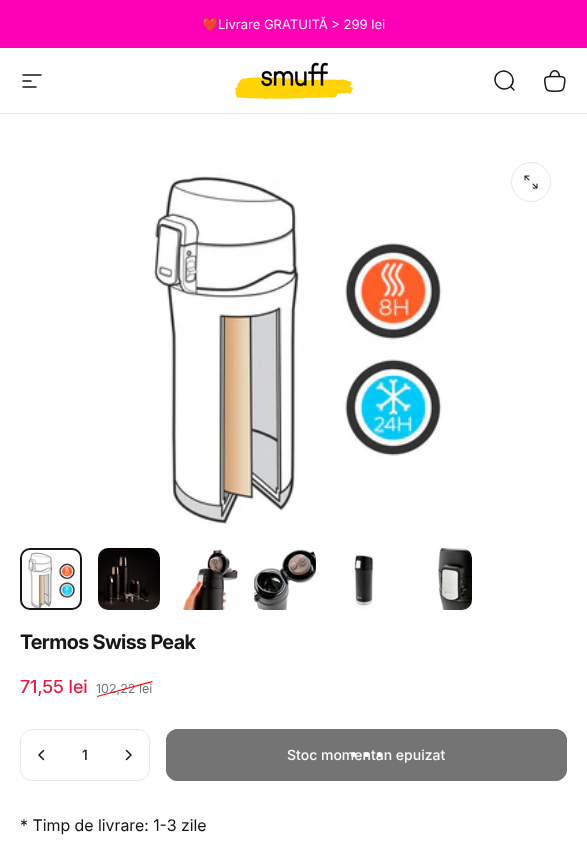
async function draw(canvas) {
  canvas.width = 587;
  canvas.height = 850;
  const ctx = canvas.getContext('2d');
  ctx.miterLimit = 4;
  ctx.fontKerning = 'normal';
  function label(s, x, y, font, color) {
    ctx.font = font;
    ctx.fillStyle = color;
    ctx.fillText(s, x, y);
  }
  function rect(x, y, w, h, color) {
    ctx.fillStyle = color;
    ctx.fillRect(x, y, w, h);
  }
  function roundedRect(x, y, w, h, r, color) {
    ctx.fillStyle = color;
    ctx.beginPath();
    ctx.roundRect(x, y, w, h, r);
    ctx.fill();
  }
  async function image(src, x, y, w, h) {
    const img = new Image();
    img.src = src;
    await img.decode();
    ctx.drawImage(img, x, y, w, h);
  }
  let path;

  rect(0, 0, 587, 850, '#fff');
  rect(0, 0, 587, 48, '#fd00b6');
  label('❤️', 202, 29, '13px Noto Color Emoji', '#fafafa');
  label('Livrare GRATUITĂ > 299 lei', 218, 29, '13px Inter', '#fafafa');
  path = new Path2D('M23 75H41M23 81H31M23 87H36');
  ctx.strokeStyle = '#171717';
  ctx.lineWidth = 1.5;
  ctx.lineCap = 'round';
  ctx.stroke(path);
  await image('assets/img1.png', 235, 62, 119, 38);
  path = new Path2D('M514 90L510.5 86.5M510.5 86.5C518.5 78 506 65.5 497.5 73.5C489.5 82 502 94.5 510.5 86.5Z');
  ctx.stroke(path);
  await image('assets/img2.png', 544, 70, 22, 22);
  rect(0, 113, 587, 1, '#e8e8e8');
  roundedRect(20, 146, 547, 386, 10, '#fafafa');
  await image('assets/img3.png', 20, 146, 547, 386);
  ctx.beginPath();
  ctx.arc(531, 182, 19.5, 0, 2 * Math.PI);
  ctx.strokeStyle = '#e8e8e8';
  ctx.lineWidth = 1;
  ctx.stroke();
  await image('assets/img4.png', 524, 175, 14, 14);
  await image('assets/img5.png', 20, 548, 62, 62);
  ctx.beginPath();
  ctx.roundRect(21, 549, 60, 60, 9);
  ctx.strokeStyle = '#171717';
  ctx.lineWidth = 2;
  ctx.stroke();
  roundedRect(98, 548, 62, 62, 10, '#fafafa');
  await image('assets/img6.png', 98, 548, 62, 62);
  roundedRect(176, 548, 62, 62, 10, '#fafafa');
  await image('assets/img7.png', 176, 548, 62, 62);
  roundedRect(254, 548, 62, 62, 10, '#fafafa');
  await image('assets/img8.png', 254, 548, 62, 62);
  roundedRect(332, 548, 62, 62, 10, '#fafafa');
  await image('assets/img9.png', 332, 548, 62, 62);
  roundedRect(410, 548, 62, 62, 10, '#fafafa');
  await image('assets/img10.png', 410, 548, 62, 62);
  ctx.letterSpacing = '-0.6px';
  label('Termos Swiss Peak', 20, 649, 'bold 20px Inter', '#171717');
  ctx.letterSpacing = '0px';
  label('71,55 lei', 20, 693, '500 18px Inter', '#e11d48');
  label('102,22 lei', 96, 693, '12.5px Inter', '#747474');
  ctx.fillStyle = '#f00';
  path = new Path2D('M97 696L152 681L153 682L97 697Z');
  ctx.fill(path);
  ctx.beginPath();
  ctx.roundRect(20.5, 729.5, 129, 51, 11.5);
  ctx.strokeStyle = '#e8e8e8';
  ctx.lineWidth = 1;
  ctx.stroke();
  path = new Path2D('M43.5 750.5L39 755L43.5 759.5');
  ctx.strokeStyle = '#171717';
  ctx.lineWidth = 1.5;
  ctx.lineJoin = 'round';
  ctx.stroke(path);
  label('1', 82, 760, '500 14px "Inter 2"', '#171717');
  path = new Path2D('M126.5 750.5L131 755L126.5 759.5');
  ctx.stroke(path);
  roundedRect(166, 729, 401, 52, 12, '#747474');
  ctx.fillStyle = '#fff';
  ctx.beginPath();
  ctx.arc(353.5, 754.5, 2.5, 0, 2 * Math.PI);
  ctx.fill();
  ctx.beginPath();
  ctx.arc(366.5, 754.5, 2.5, 0, 2 * Math.PI);
  ctx.fill();
  ctx.beginPath();
  ctx.arc(379.5, 754.5, 2.5, 0, 2 * Math.PI);
  ctx.fill();
  ctx.beginPath();
  ctx.roundRect(167, 730, 399, 50, 11);
  ctx.strokeStyle = '#747474';
  ctx.lineWidth = 2;
  ctx.lineJoin = 'miter';
  ctx.stroke();
  label('Stoc momentan epuizat', 287, 760, '500 14px "Inter 2"', '#fafafa');
  label('* Timp de livrare: 1-3 zile', 20, 831, '16px "Inter 2"', '#171717');
}

draw(document.querySelector('canvas'));
